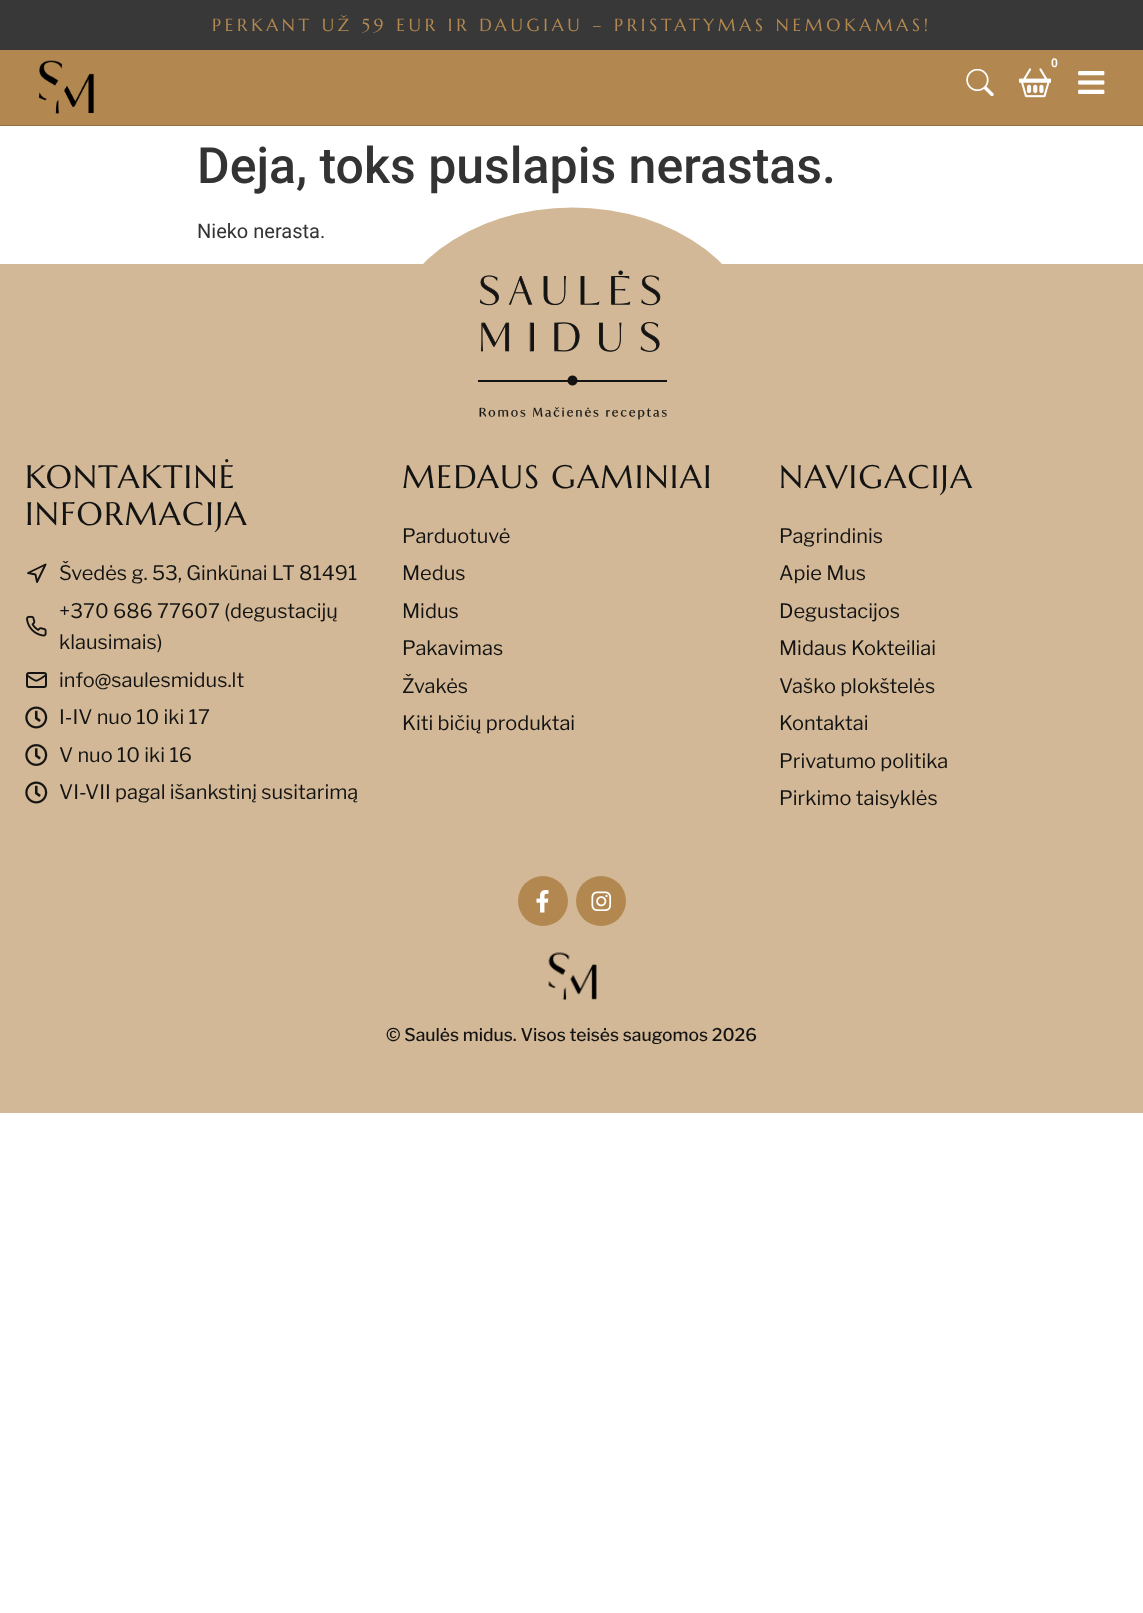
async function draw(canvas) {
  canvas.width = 1143;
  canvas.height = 1613;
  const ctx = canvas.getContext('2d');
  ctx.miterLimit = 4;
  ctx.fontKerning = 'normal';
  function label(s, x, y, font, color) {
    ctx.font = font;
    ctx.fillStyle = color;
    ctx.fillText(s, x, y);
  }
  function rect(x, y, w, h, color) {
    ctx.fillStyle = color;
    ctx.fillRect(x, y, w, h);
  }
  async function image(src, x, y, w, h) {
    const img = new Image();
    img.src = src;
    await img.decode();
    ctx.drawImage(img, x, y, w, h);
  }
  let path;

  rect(0, 0, 1143, 1613, '#fff');
  rect(0, 0, 1143, 50, '#383838');
  ctx.letterSpacing = '3.75px';
  label('PERKANT UŽ 59 EUR IR DAUGIAU – PRISTATYMAS NEMOKAMAS!', 212, 31, '17.5px Marcellus', '#b28850');
  rect(0, 50, 1143, 75, '#b28850');
  rect(0, 125, 1143, 1, '#927144');
  await image('assets/img1.png', 39, 60, 56, 54);
  ctx.letterSpacing = '0px';
  label('0', 1051, 67, '600 12px Roboto', '#fff');
  await image('assets/img2.png', 1019, 68, 32, 30);
  await image('assets/img3.png', 966, 69, 28, 27);
  await image('assets/img4.png', 1078, 71, 27, 23);
  label('Deja, toks puslapis nerastas.', 197, 183, '500 50px Roboto', '#333');
  label('Nieko nerasta.', 197, 238, '20px Roboto', '#333');
  rect(0, 264, 1143, 849, '#d2b896');
  ctx.beginPath();
  ctx.ellipse(572.5, 349.5, 187.5, 142, 0, 0, 2 * Math.PI);
  ctx.fill();
  await image('assets/img5.png', 478, 270, 189, 150);
  ctx.letterSpacing = '1.25px';
  label('KONTAKTINĖ', 25, 488, '32.5px Marcellus', '#131313');
  label('INFORMACIJA', 25, 525, '32.5px Marcellus', '#131313');
  path = new Path2D('M28 573L45.5 564.5L37 582L35.5 574.5Z');
  ctx.strokeStyle = '#131313';
  ctx.lineWidth = 1.9;
  ctx.lineCap = 'round';
  ctx.lineJoin = 'round';
  ctx.stroke(path);
  ctx.letterSpacing = '0px';
  label('Švedės g. 53, Ginkūnai LT 81491', 59, 580, '20px Libre Franklin', '#131313');
  await image('assets/img6.png', 26, 615, 21, 22);
  label('+370 686 77607 (degustacijų', 59, 618, '20px Libre Franklin', '#131313');
  label('klausimais)', 59, 649, '20px Libre Franklin', '#131313');
  ctx.beginPath();
  ctx.roundRect(27, 673, 19, 14, 2);
  ctx.lineWidth = 2;
  ctx.lineJoin = 'miter';
  ctx.stroke();
  path = new Path2D('M45.5 675.5C34 682.5 38.5 682.5 27 675.5');
  ctx.lineWidth = 1.9;
  ctx.lineJoin = 'round';
  ctx.stroke(path);
  label('info@saulesmidus.lt', 59, 687, '20px Libre Franklin', '#131313');
  await image('assets/img7.png', 25, 706, 23, 23);
  label('I-IV nuo 10 iki 17', 59, 724, '20px Libre Franklin', '#131313');
  await image('assets/img8.png', 25, 744, 23, 22);
  label('V nuo 10 iki 16', 59, 762, '20px Libre Franklin', '#131313');
  await image('assets/img7.png', 25, 781, 23, 23);
  label('VI-VII pagal išankstinį susitarimą', 59, 799, '20px Libre Franklin', '#131313');
  ctx.letterSpacing = '1.25px';
  label('MEDAUS GAMINIAI', 402, 488, '32.5px Marcellus', '#131313');
  ctx.letterSpacing = '0px';
  label('Parduotuvė', 402, 543, '20px Libre Franklin', '#131313');
  label('Medus', 402, 580, '20px Libre Franklin', '#131313');
  label('Midus', 402, 618, '20px Libre Franklin', '#131313');
  label('Pakavimas', 402, 655, '20px Libre Franklin', '#131313');
  label('Žvakės', 402, 693, '20px Libre Franklin', '#131313');
  label('Kiti bičių produktai', 402, 730, '20px Libre Franklin', '#131313');
  ctx.letterSpacing = '1.25px';
  label('NAVIGACIJA', 779, 488, '32.5px Marcellus', '#131313');
  ctx.letterSpacing = '0px';
  label('Pagrindinis', 779, 543, '20px Libre Franklin', '#131313');
  label('Apie Mus', 779, 580, '20px Libre Franklin', '#131313');
  label('Degustacijos', 779, 618, '20px Libre Franklin', '#131313');
  label('Midaus Kokteiliai', 779, 655, '20px Libre Franklin', '#131313');
  label('Vaško plokštelės', 779, 693, '20px Libre Franklin', '#131313');
  label('Kontaktai', 779, 730, '20px Libre Franklin', '#131313');
  label('Privatumo politika', 779, 768, '20px Libre Franklin', '#131313');
  label('Pirkimo taisyklės', 779, 805, '20px Libre Franklin', '#131313');
  ctx.fillStyle = '#b28850';
  ctx.beginPath();
  ctx.arc(543, 901, 25, 0, 2 * Math.PI);
  ctx.fill();
  await image('assets/img9.png', 536, 890, 13, 23);
  ctx.beginPath();
  ctx.arc(601, 901, 25, 0, 2 * Math.PI);
  ctx.fill();
  await image('assets/img10.png', 591, 891, 21, 20);
  await image('assets/img11.png', 548, 952, 49, 48);
  label('© Saulės midus. Visos teisės saugomos 2026', 386, 1041, '500 17.5px Libre Franklin', '#131313');
}

draw(document.querySelector('canvas'));
